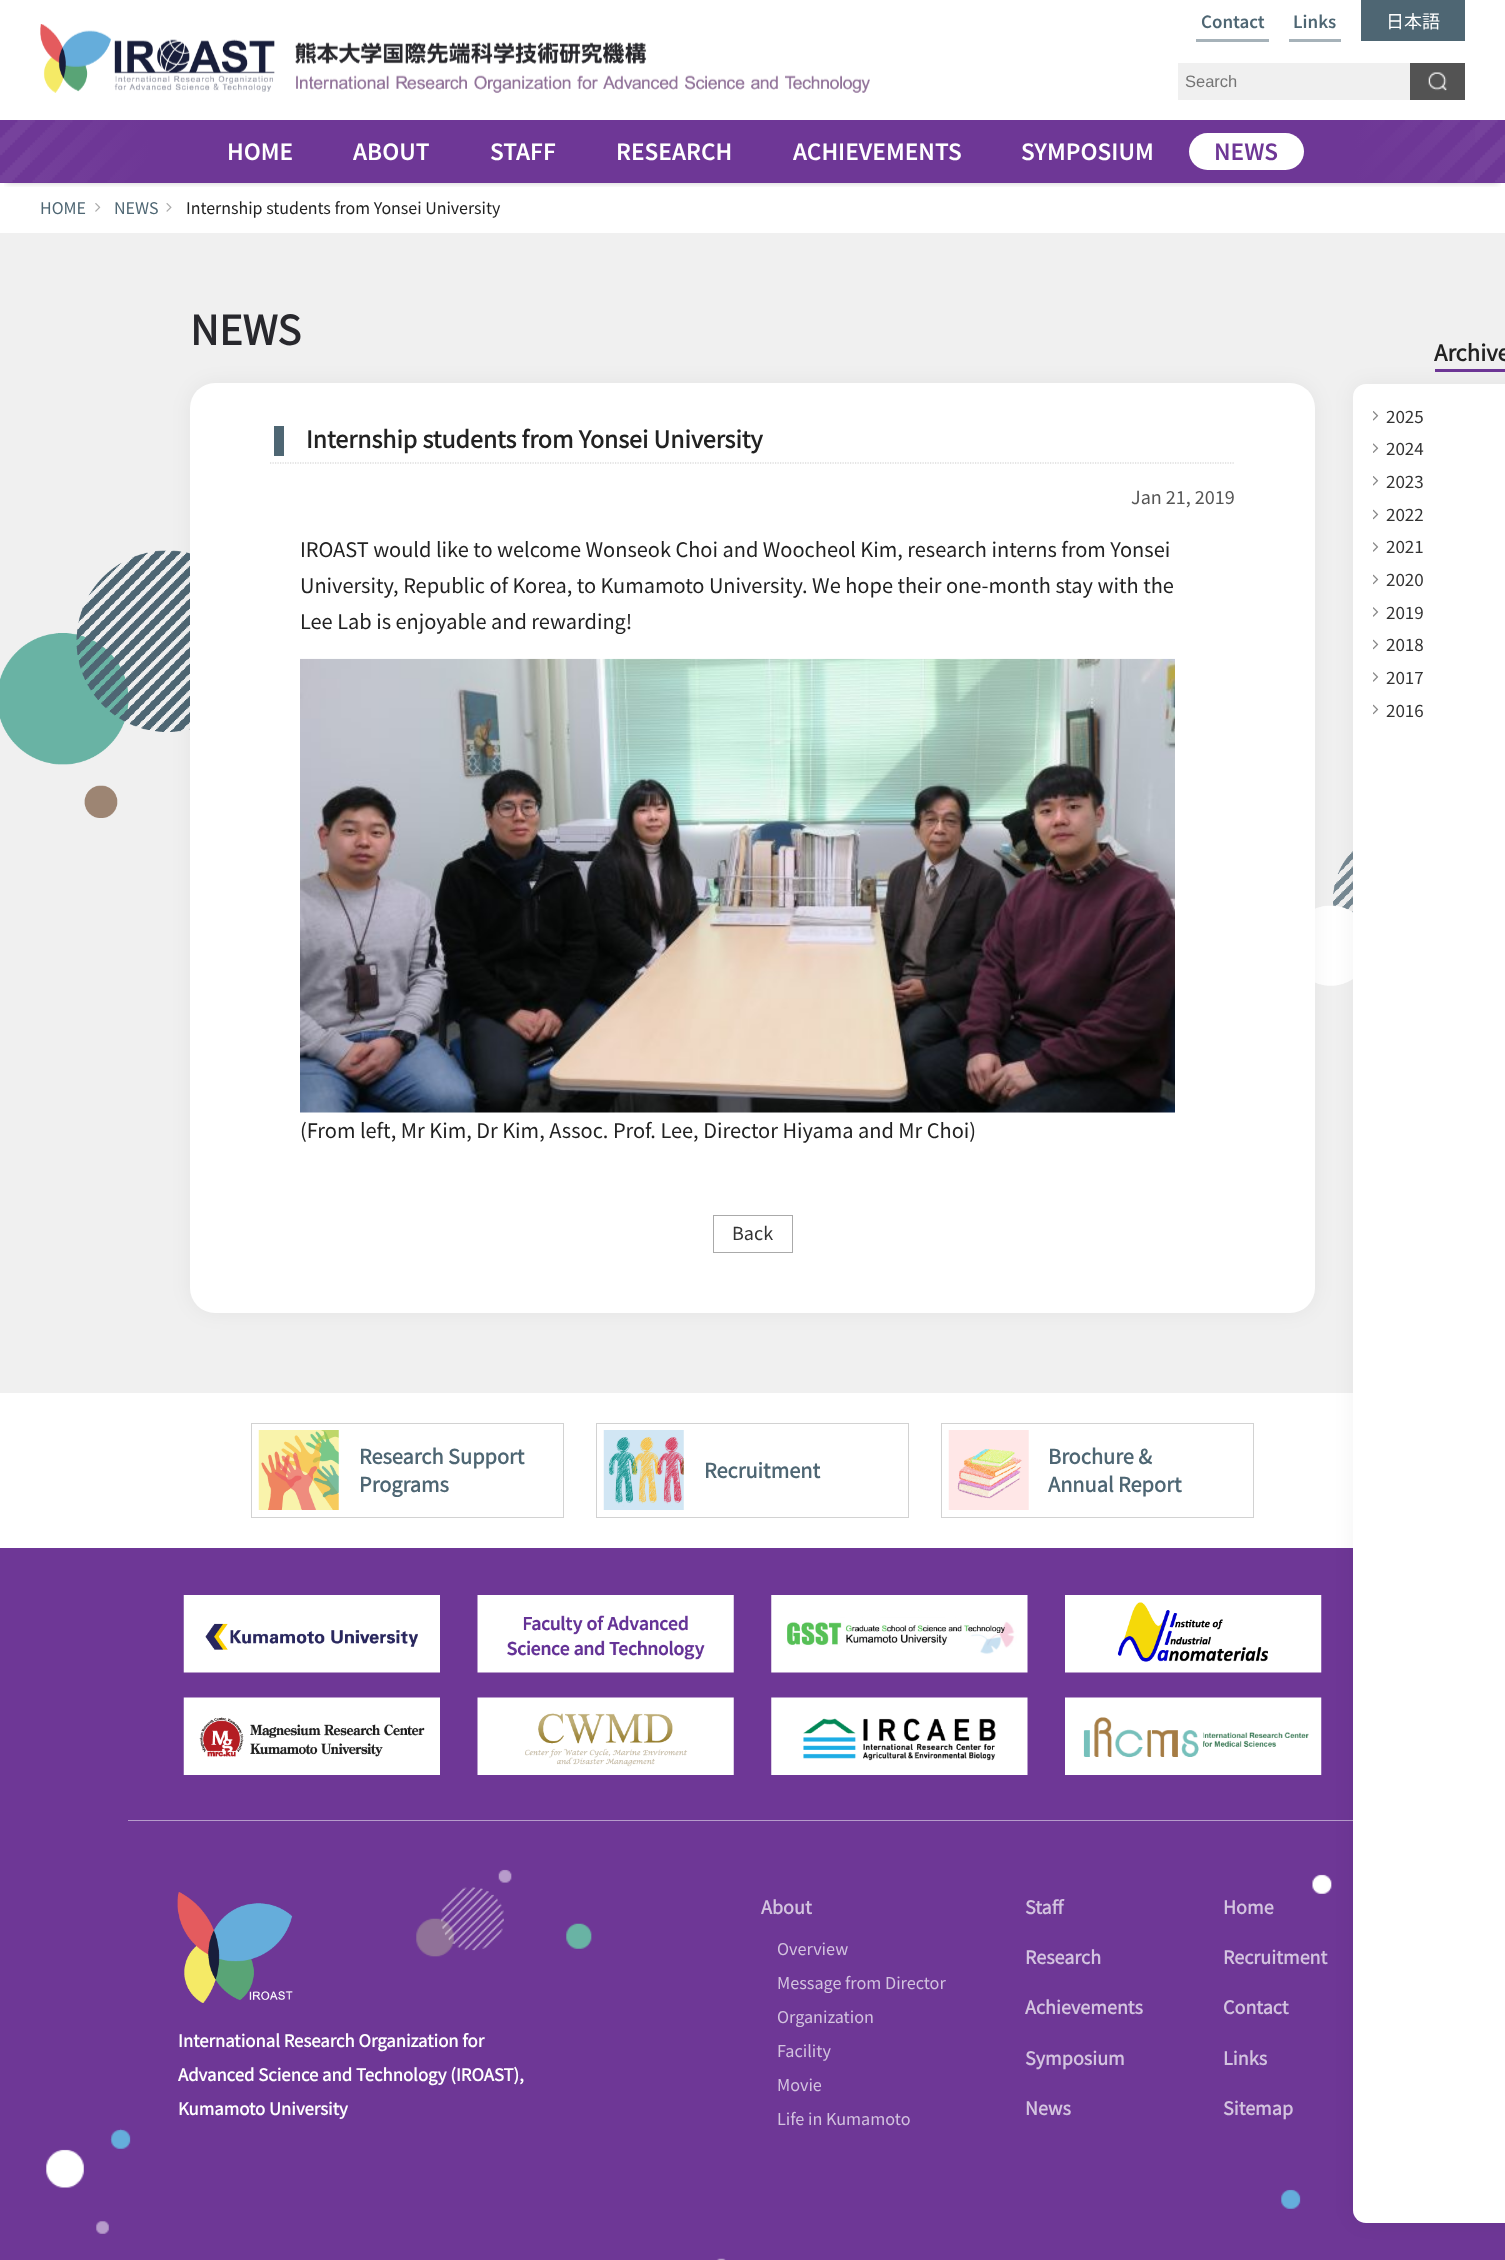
async function draw(canvas) {
  canvas.width = 1505;
  canvas.height = 2260;
  const ctx = canvas.getContext('2d');
  ctx.miterLimit = 4;
  ctx.fontKerning = 'normal';
  function label(s, x, y, font, color) {
    ctx.font = font;
    ctx.fillStyle = color;
    ctx.fillText(s, x, y);
  }
  function rect(x, y, w, h, color) {
    ctx.fillStyle = color;
    ctx.fillRect(x, y, w, h);
  }
  function roundedRect(x, y, w, h, r, color) {
    ctx.fillStyle = color;
    ctx.beginPath();
    ctx.roundRect(x, y, w, h, r);
    ctx.fill();
  }
  async function image(src, x, y, w, h) {
    const img = new Image();
    img.src = src;
    await img.decode();
    ctx.drawImage(img, x, y, w, h);
  }
  let gradient, path;

  rect(0, 0, 1505, 2260, '#6e3796');
  rect(0, 0, 1505, 1393, '#f0f0f0');
  rect(0, 183, 1505, 50, '#fff');
  ctx.save();
  ctx.beginPath();
  ctx.rect(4, 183, 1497, 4);
  ctx.clip();
  ctx.fillStyle = '#00000033';
  ctx.filter = 'blur(3px)';
  ctx.beginPath();
  ctx.rect(6, 13, 1493, 170);
  ctx.fill();
  ctx.filter = 'none';
  ctx.restore();
  rect(0, 0, 1505, 120, '#fffffffc');
  label('Contact', 1201, 28, '600 19px Source Sans Pro', '#4e6673');
  rect(1196, 39, 73, 3, '#a6b2b9');
  label('Links', 1293, 28, '600 19px Source Sans Pro', '#4e6673');
  rect(1289, 39, 52, 3, '#a6b2b9');
  rect(1361, 0, 104, 41, '#4e6673');
  label('日本語', 1386, 28, '100 18px Noto Sans JP', '#fff');
  await image('assets/img1.png', 40, 24, 235, 69);
  await image('assets/img2.png', 295, 42, 575, 51);
  rect(1178, 63, 232, 37, '#f0f0f0');
  label('Search', 1185, 87, '16.5px Liberation Sans', '#757575');
  rect(1410, 63, 55, 37, '#535353');
  await image('assets/img3.png', 1428, 72, 19, 19);
  rect(0, 120, 1505, 63, '#6e3796');
  await image('assets/img4.png', 0, 120, 1505, 63);
  gradient = ctx.createLinearGradient(0, 151, 1505, 151);
  gradient.addColorStop(0, '#6e379600');
  gradient.addColorStop(0.1, '#6e3796');
  gradient.addColorStop(0.9, '#6e3796');
  gradient.addColorStop(1, '#6e379600');
  ctx.fillStyle = gradient;
  ctx.fillRect(30, 120, 1445, 63);
  label('HOME', 227, 160, '600 25.25px Source Sans Pro', '#fff');
  label('ABOUT', 353, 160, '600 25.25px Source Sans Pro', '#fff');
  label('STAFF', 490, 160, '600 25.25px Source Sans Pro', '#fff');
  label('RESEARCH', 616, 160, '600 25.25px Source Sans Pro', '#fff');
  label('ACHIEVEMENTS', 793, 160, '600 25.25px Source Sans Pro', '#fff');
  label('SYMPOSIUM', 1021, 160, '600 25.25px Source Sans Pro', '#fff');
  roundedRect(1189, 133, 115, 37, 18.5, '#fff');
  label('NEWS', 1214, 160, '600 25.25px Source Sans Pro', '#6e3796');
  await image('assets/img5.png', 0, 550, 1353, 436);
  label('HOME', 40, 214, '100 16px Noto Sans JP', '#4e6673');
  await image('assets/img6.png', 95, 203, 6, 9);
  label('NEWS', 114, 214, '100 16px Noto Sans JP', '#4e6673');
  await image('assets/img7.png', 166, 203, 6, 9);
  label('Internship students from Yonsei University', 186, 214, '100 16px Noto Sans JP', '#222');
  label('NEWS', 190, 345, 'bold 40px Noto Sans JP', '#28282d');
  ctx.fillStyle = '#0000000d';
  ctx.filter = 'blur(10px)';
  ctx.beginPath();
  ctx.roundRect(190, 383, 1125, 930, 25);
  ctx.fill();
  ctx.filter = 'none';
  roundedRect(190, 383, 1125, 930, 25, '#fff');
  path = new Path2D('M270 463H1235');
  ctx.strokeStyle = '#ccc';
  ctx.lineWidth = 1.2;
  ctx.setLineDash([1.25, 1.25]);
  ctx.stroke(path);
  rect(274, 426, 10, 30, '#4e6673');
  label('Internship students from Yonsei University', 306, 448, 'bold 23.25px Noto Sans JP', '#222');
  rect(1435, 369, 70, 3, '#6e3796');
  label('Archive', 1434, 361, 'bold 22px Noto Sans JP', '#222');
  await image('assets/img13.png', 46, 1869, 1286, 391);
  rect(0, 1393, 1353, 155, '#fff');
  rect(128, 1820, 1225, 1, '#b69bcb');
  ctx.fillStyle = '#0000000d';
  ctx.filter = 'blur(10px)';
  ctx.beginPath();
  ctx.roundRect(1353, 384, 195, 1839, 13);
  ctx.fill();
  ctx.filter = 'none';
  roundedRect(1353, 384, 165, 1839, 13, '#fff');
  await image('assets/img8.png', 1373, 411, 6, 10);
  label('2025', 1386, 423, '100 17px Noto Sans JP', '#333');
  await image('assets/img9.png', 1373, 443, 6, 10);
  label('2024', 1386, 455, '100 17px Noto Sans JP', '#333');
  await image('assets/img8.png', 1373, 476, 6, 10);
  label('2023', 1386, 488, '100 17px Noto Sans JP', '#333');
  await image('assets/img10.png', 1373, 509, 6, 11);
  label('2022', 1386, 521, '100 17px Noto Sans JP', '#333');
  await image('assets/img11.png', 1373, 542, 6, 10);
  label('2021', 1386, 553, '100 17px Noto Sans JP', '#333');
  await image('assets/img10.png', 1373, 574, 6, 11);
  label('2020', 1386, 586, '100 17px Noto Sans JP', '#333');
  await image('assets/img11.png', 1373, 607, 6, 10);
  label('2019', 1386, 619, '100 17px Noto Sans JP', '#333');
  await image('assets/img10.png', 1373, 639, 6, 11);
  label('2018', 1386, 651, '100 17px Noto Sans JP', '#333');
  await image('assets/img11.png', 1373, 672, 6, 10);
  label('2017', 1386, 684, '100 17px Noto Sans JP', '#333');
  await image('assets/img10.png', 1373, 704, 6, 11);
  label('2016', 1386, 717, '100 17px Noto Sans JP', '#333');
  label('Jan 21, 2019', 1131, 504, '100 18px Noto Sans JP', '#555');
  label('IROAST would like to welcome Wonseok Choi and Woocheol Kim, research interns from Yonsei', 300, 557, '100 20px Noto Sans JP', '#222');
  label('University, Republic of Korea, to Kumamoto University. We hope their one-month stay with the', 300, 593, '100 20px Noto Sans JP', '#222');
  label('Lee Lab is enjoyable and rewarding!', 300, 629, '100 20px Noto Sans JP', '#222');
  await image('assets/img12.png', 300, 658, 875, 455);
  label('(From left, Mr Kim, Dr Kim, Assoc. Prof. Lee, Director Hiyama and Mr Choi)', 300, 1138, '100 20px Noto Sans JP', '#222');
  ctx.strokeStyle = '#aaa';
  ctx.lineWidth = 1;
  ctx.setLineDash([]);
  ctx.strokeRect(713.5, 1215.5, 79, 37);
  label('Back', 732, 1240, '100 18px Noto Sans JP', '#333');
  ctx.strokeStyle = '#d2d2d2';
  ctx.strokeRect(251.5, 1423.5, 312, 94);
  await image('assets/img14.png', 258, 1430, 81, 80);
  label('Research Support', 359, 1464, 'bold 20px Noto Sans JP', '#4e6673');
  label('Programs', 359, 1492, 'bold 20px Noto Sans JP', '#4e6673');
  ctx.strokeRect(596.5, 1423.5, 312, 94);
  await image('assets/img15.png', 603, 1430, 81, 80);
  label('Recruitment', 704, 1478, 'bold 20px Noto Sans JP', '#4e6673');
  ctx.strokeRect(941.5, 1423.5, 312, 94);
  await image('assets/img16.png', 948, 1430, 81, 80);
  label('Brochure &', 1048, 1464, 'bold 20px Noto Sans JP', '#4e6673');
  label('Annual Report', 1048, 1492, 'bold 20px Noto Sans JP', '#4e6673');
  await image('assets/img17.png', 183, 1595, 257, 78);
  await image('assets/img18.png', 477, 1595, 257, 78);
  await image('assets/img19.png', 771, 1595, 257, 78);
  await image('assets/img20.png', 1065, 1595, 257, 78);
  await image('assets/img21.png', 183, 1697, 257, 78);
  await image('assets/img22.png', 477, 1697, 257, 78);
  await image('assets/img23.png', 771, 1697, 257, 78);
  await image('assets/img24.png', 1065, 1697, 257, 78);
  await image('assets/img25.png', 177, 1892, 116, 111);
  label('International Research Organization for', 178, 2047, 'bold 16.8px Noto Sans JP', '#fff');
  label('Advanced Science and Technology (IROAST),', 178, 2081, 'bold 16.8px Noto Sans JP', '#fff');
  label('Kumamoto University', 178, 2115, 'bold 16.8px Noto Sans JP', '#fff');
  label('About', 761, 1914, 'bold 18px Noto Sans JP', '#d3c3df');
  label('Overview', 777, 1955, '100 16.25px Noto Sans JP', '#d3c3df');
  label('Message from Director', 777, 1989, '100 16.25px Noto Sans JP', '#d3c3df');
  label('Organization', 777, 2023, '100 16.25px Noto Sans JP', '#d3c3df');
  label('Facility', 777, 2057, '100 16.25px Noto Sans JP', '#d3c3df');
  label('Movie', 777, 2091, '100 16.25px Noto Sans JP', '#d3c3df');
  label('Life in Kumamoto', 777, 2125, '100 16.25px Noto Sans JP', '#d3c3df');
  label('Staff', 1025, 1914, 'bold 18px Noto Sans JP', '#d3c3df');
  label('Research', 1025, 1964, 'bold 18px Noto Sans JP', '#d3c3df');
  label('Achievements', 1025, 2014, 'bold 18px Noto Sans JP', '#d3c3df');
  label('Symposium', 1025, 2065, 'bold 18px Noto Sans JP', '#d3c3df');
  label('News', 1025, 2115, 'bold 18px Noto Sans JP', '#d3c3df');
  label('Home', 1223, 1914, 'bold 18px Noto Sans JP', '#d3c3df');
  label('Recruitment', 1223, 1964, 'bold 18px Noto Sans JP', '#d3c3df');
  label('Contact', 1223, 2014, 'bold 18px Noto Sans JP', '#d3c3df');
  label('Links', 1223, 2065, 'bold 18px Noto Sans JP', '#d3c3df');
  label('Sitemap', 1223, 2115, 'bold 18px Noto Sans JP', '#d3c3df');
}

draw(document.querySelector('canvas'));
